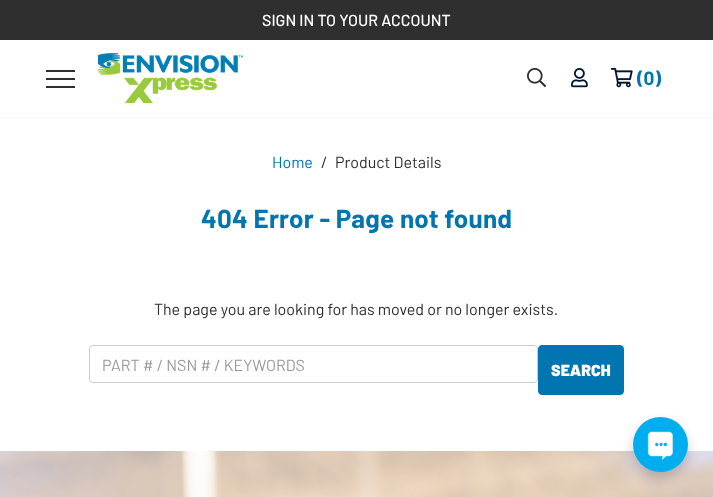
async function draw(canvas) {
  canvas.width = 713;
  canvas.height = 497;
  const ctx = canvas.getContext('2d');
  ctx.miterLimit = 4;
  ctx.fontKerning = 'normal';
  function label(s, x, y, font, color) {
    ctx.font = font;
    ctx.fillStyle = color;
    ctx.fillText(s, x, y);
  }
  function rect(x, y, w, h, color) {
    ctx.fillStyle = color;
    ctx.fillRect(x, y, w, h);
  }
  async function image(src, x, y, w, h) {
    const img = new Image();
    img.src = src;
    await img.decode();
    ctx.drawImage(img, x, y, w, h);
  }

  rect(0, 0, 713, 497, '#fff');
  rect(0, 117, 713, 1, '#f8f9fa');
  rect(0, 0, 713, 40, '#2f2f2f');
  label('SIGN IN TO YOUR ACCOUNT', 262, 26, '500 16px Barlow', '#fff');
  rect(46, 78, 29, 2, '#2f2f2f');
  rect(46, 70, 29, 2, '#2f2f2f');
  rect(46, 86, 29, 2, '#2f2f2f');
  await image('assets/img1.png', 98, 53, 145, 51);
  await image('assets/img2.png', 527, 68, 20, 20);
  await image('assets/img3.png', 571, 68, 17, 20);
  await image('assets/img4.png', 610, 67, 23, 21);
  label('(0)', 637, 85, 'bold 19px Barlow', '#0075b0');
  label('Home', 272, 168, '16px Barlow', '#0075b0');
  label('/', 321, 168, '16px Barlow', '#2f2f2f');
  label('Product Details', 335, 168, '16px Barlow', '#2f2f2f');
  ctx.letterSpacing = '0.25px';
  label('404 Error - Page not found', 201, 228, 'bold 26px Barlow', '#0075b0');
  ctx.letterSpacing = '0px';
  label('The page you are looking for has moved or no longer exists.', 154, 315, '16px Barlow', '#2f2f2f');
  ctx.beginPath();
  ctx.roundRect(89.5, 345.5, 448, 37, 3.5);
  ctx.strokeStyle = '#ccc';
  ctx.stroke();
  label('PART # / NSN # / KEYWORDS', 102, 371, '16px Barlow', '#999');
  ctx.fillStyle = '#0075b0';
  ctx.beginPath();
  ctx.roundRect(538.5, 345.5, 85, 49, 3.5);
  ctx.fill();
  ctx.strokeStyle = '#0075b0';
  ctx.stroke();
  label('SEARCH', 551, 376, '900 16px Barlow', '#fff');
  await image('assets/img5.png', 0, 451, 713, 46);
  ctx.fillStyle = '#00000033';
  ctx.filter = 'blur(6px)';
  ctx.beginPath();
  ctx.roundRect(633, 423, 55, 55, 27.5);
  ctx.fill();
  ctx.filter = 'none';
  ctx.fillStyle = '#00aeef';
  ctx.beginPath();
  ctx.arc(660.5, 444.5, 27.5, 0, 2 * Math.PI);
  ctx.fill();
  await image('assets/img6.png', 647, 431, 27, 29);
}

draw(document.querySelector('canvas'));
